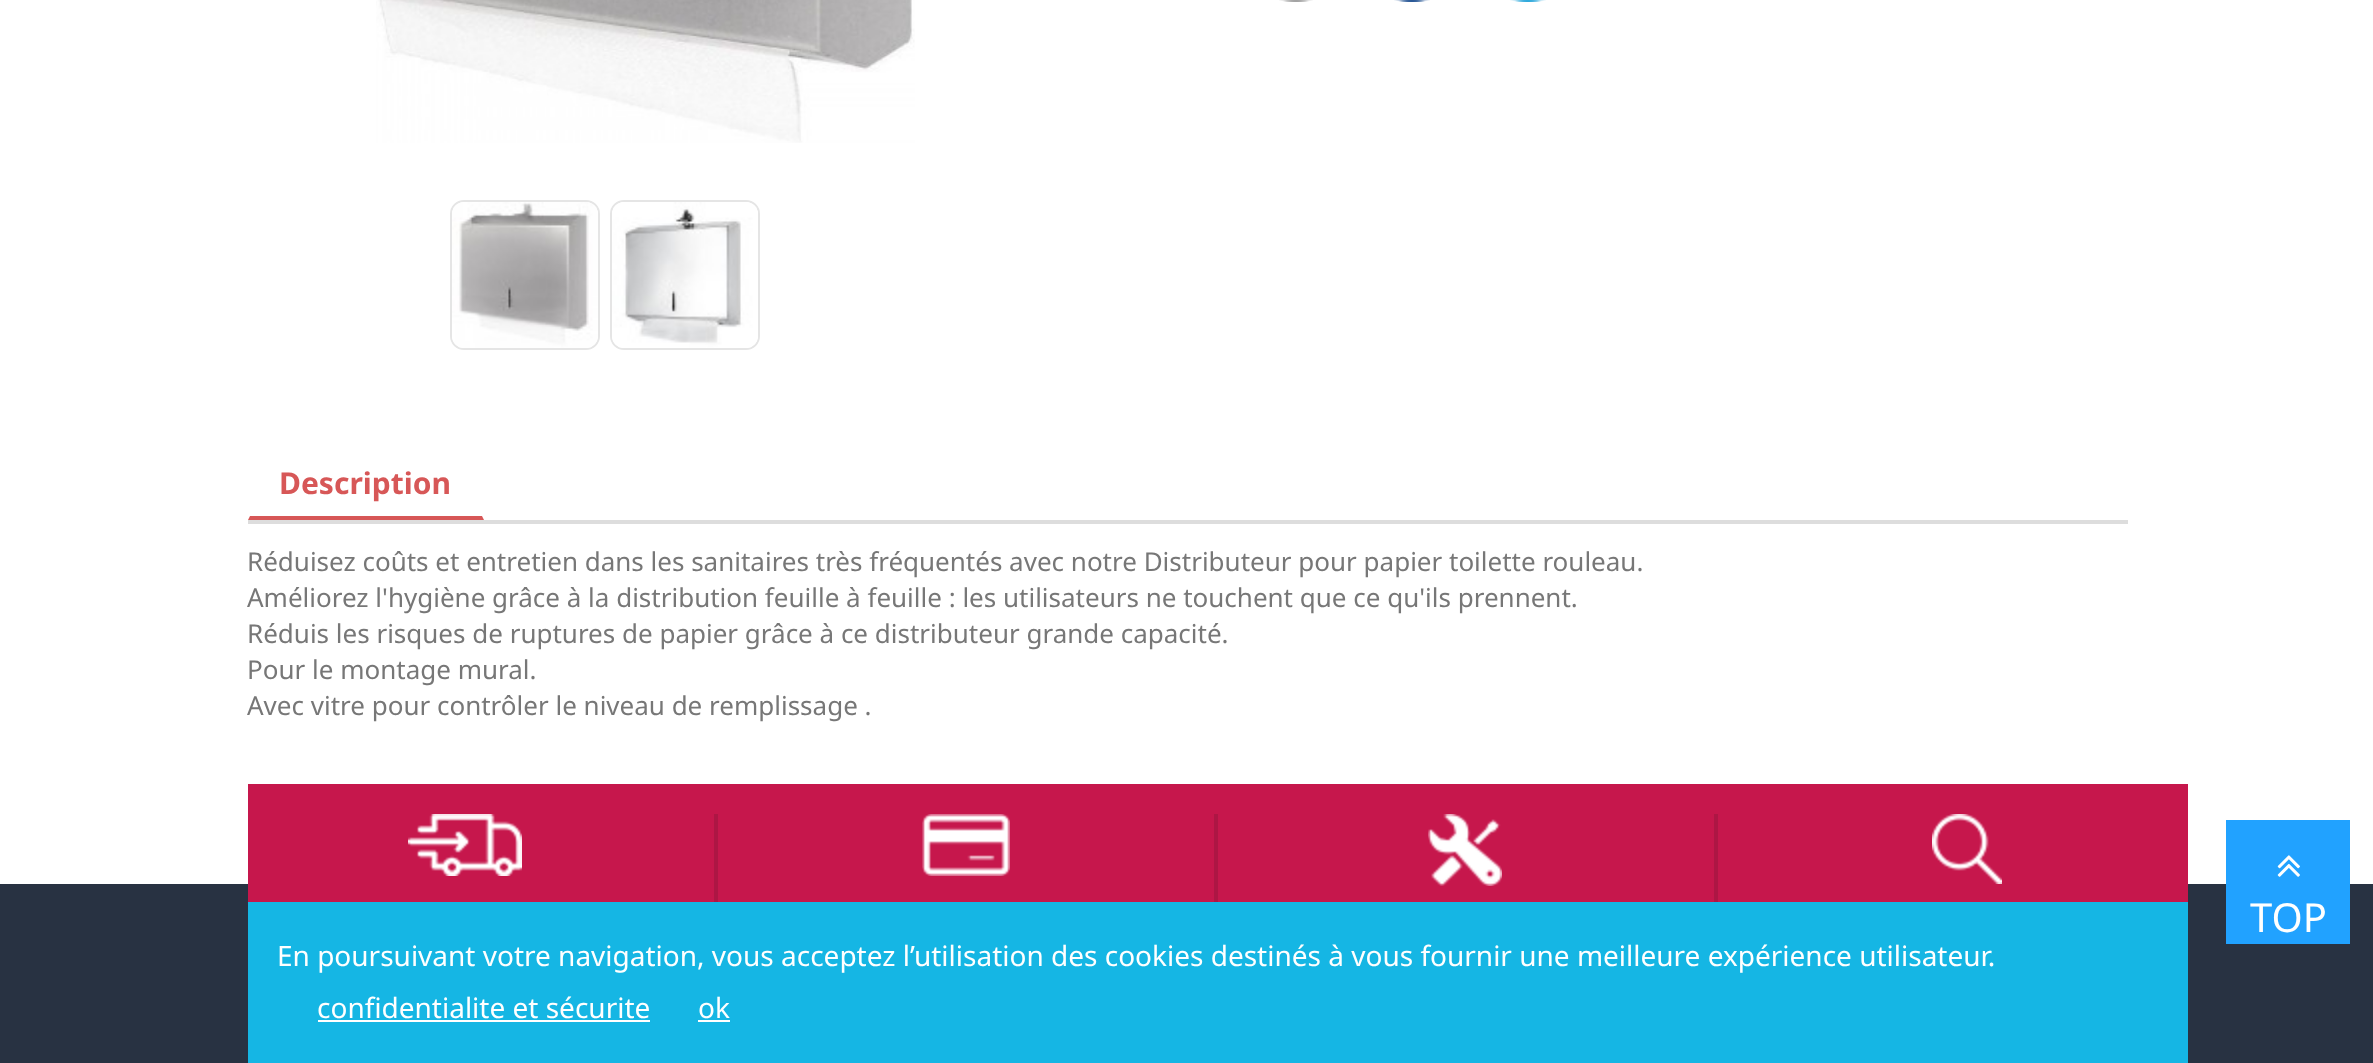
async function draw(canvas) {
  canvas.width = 2373;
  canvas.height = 1063;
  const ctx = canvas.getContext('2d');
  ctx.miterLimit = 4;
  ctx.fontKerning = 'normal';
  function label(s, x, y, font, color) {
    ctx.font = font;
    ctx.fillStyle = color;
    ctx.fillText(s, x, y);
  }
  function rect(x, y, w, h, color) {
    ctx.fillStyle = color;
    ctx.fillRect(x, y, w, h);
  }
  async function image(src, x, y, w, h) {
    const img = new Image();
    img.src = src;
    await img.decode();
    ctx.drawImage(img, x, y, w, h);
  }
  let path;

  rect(0, 0, 2373, 1063, '#fff');
  await image('assets/img1.png', 376, 0, 539, 143);
  ctx.beginPath();
  ctx.roundRect(451, 201, 148, 148, 13);
  ctx.strokeStyle = '#e5e5e5';
  ctx.lineWidth = 2;
  ctx.stroke();
  await image('assets/img2.png', 452, 202, 146, 146);
  ctx.beginPath();
  ctx.roundRect(611, 201, 148, 148, 13);
  ctx.stroke();
  await image('assets/img3.png', 612, 202, 146, 146);
  await image('assets/img4.png', 1279, 0, 34, 2);
  await image('assets/img5.png', 1394, 0, 36, 2);
  await image('assets/img6.png', 1510, 0, 36, 2);
  rect(248, 520, 1880, 4, '#ddd');
  ctx.fillStyle = '#d75757';
  path = new Path2D('M484 520L482 516H250L248 520Z');
  ctx.fill(path);
  label('Description', 279, 494, 'bold 30px Noto Sans', '#d75757');
  label('Réduisez coûts et entretien dans les sanitaires très fréquentés avec notre Distributeur pour papier toilette rouleau.', 247, 571, '26px Noto Sans', '#777');
  label('Améliorez l\'hygiène grâce à la distribution feuille à feuille : les utilisateurs ne touchent que ce qu\'ils prennent.', 247, 607, '26px Noto Sans', '#777');
  label('Réduis les risques de ruptures de papier grâce à ce distributeur grande capacité.', 247, 643, '26px Noto Sans', '#777');
  label('Pour le montage mural.', 247, 679, '26px Noto Sans', '#777');
  label('Avec vitre pour contrôler le niveau de remplissage .', 247, 715, '26px Noto Sans', '#777');
  rect(0, 884, 2373, 179, '#283242');
  rect(248, 784, 1940, 118, '#c6174c');
  rect(714, 814, 4, 88, '#ad1644');
  await image('assets/img7.png', 408, 814, 114, 62);
  rect(1214, 814, 4, 88, '#ad1644');
  await image('assets/img8.png', 922, 814, 88, 62);
  rect(1714, 814, 4, 88, '#ad1644');
  await image('assets/img9.png', 1428, 814, 74, 72);
  await image('assets/img10.png', 1932, 814, 70, 70);
  rect(2226, 820, 124, 124, '#21a2ff');
  await image('assets/img11.png', 2277, 855, 23, 22);
  label('TOP', 2250, 932, '40px Noto Sans', '#fff');
  rect(248, 902, 1940, 161, '#15b6e4');
  label('En poursuivant votre navigation, vous acceptez l’utilisation des cookies destinés à vous fournir une meilleure expérience utilisateur.', 277, 966, '28px Noto Sans', '#fff');
  label('confidentialite et sécurite', 317, 1018, '28px Noto Sans', '#fff');
  rect(318, 1020, 332, 2, '#fff');
  label('ok', 698, 1018, '28px Noto Sans', '#fff');
  rect(698, 1020, 32, 2, '#fff');
}

draw(document.querySelector('canvas'));
